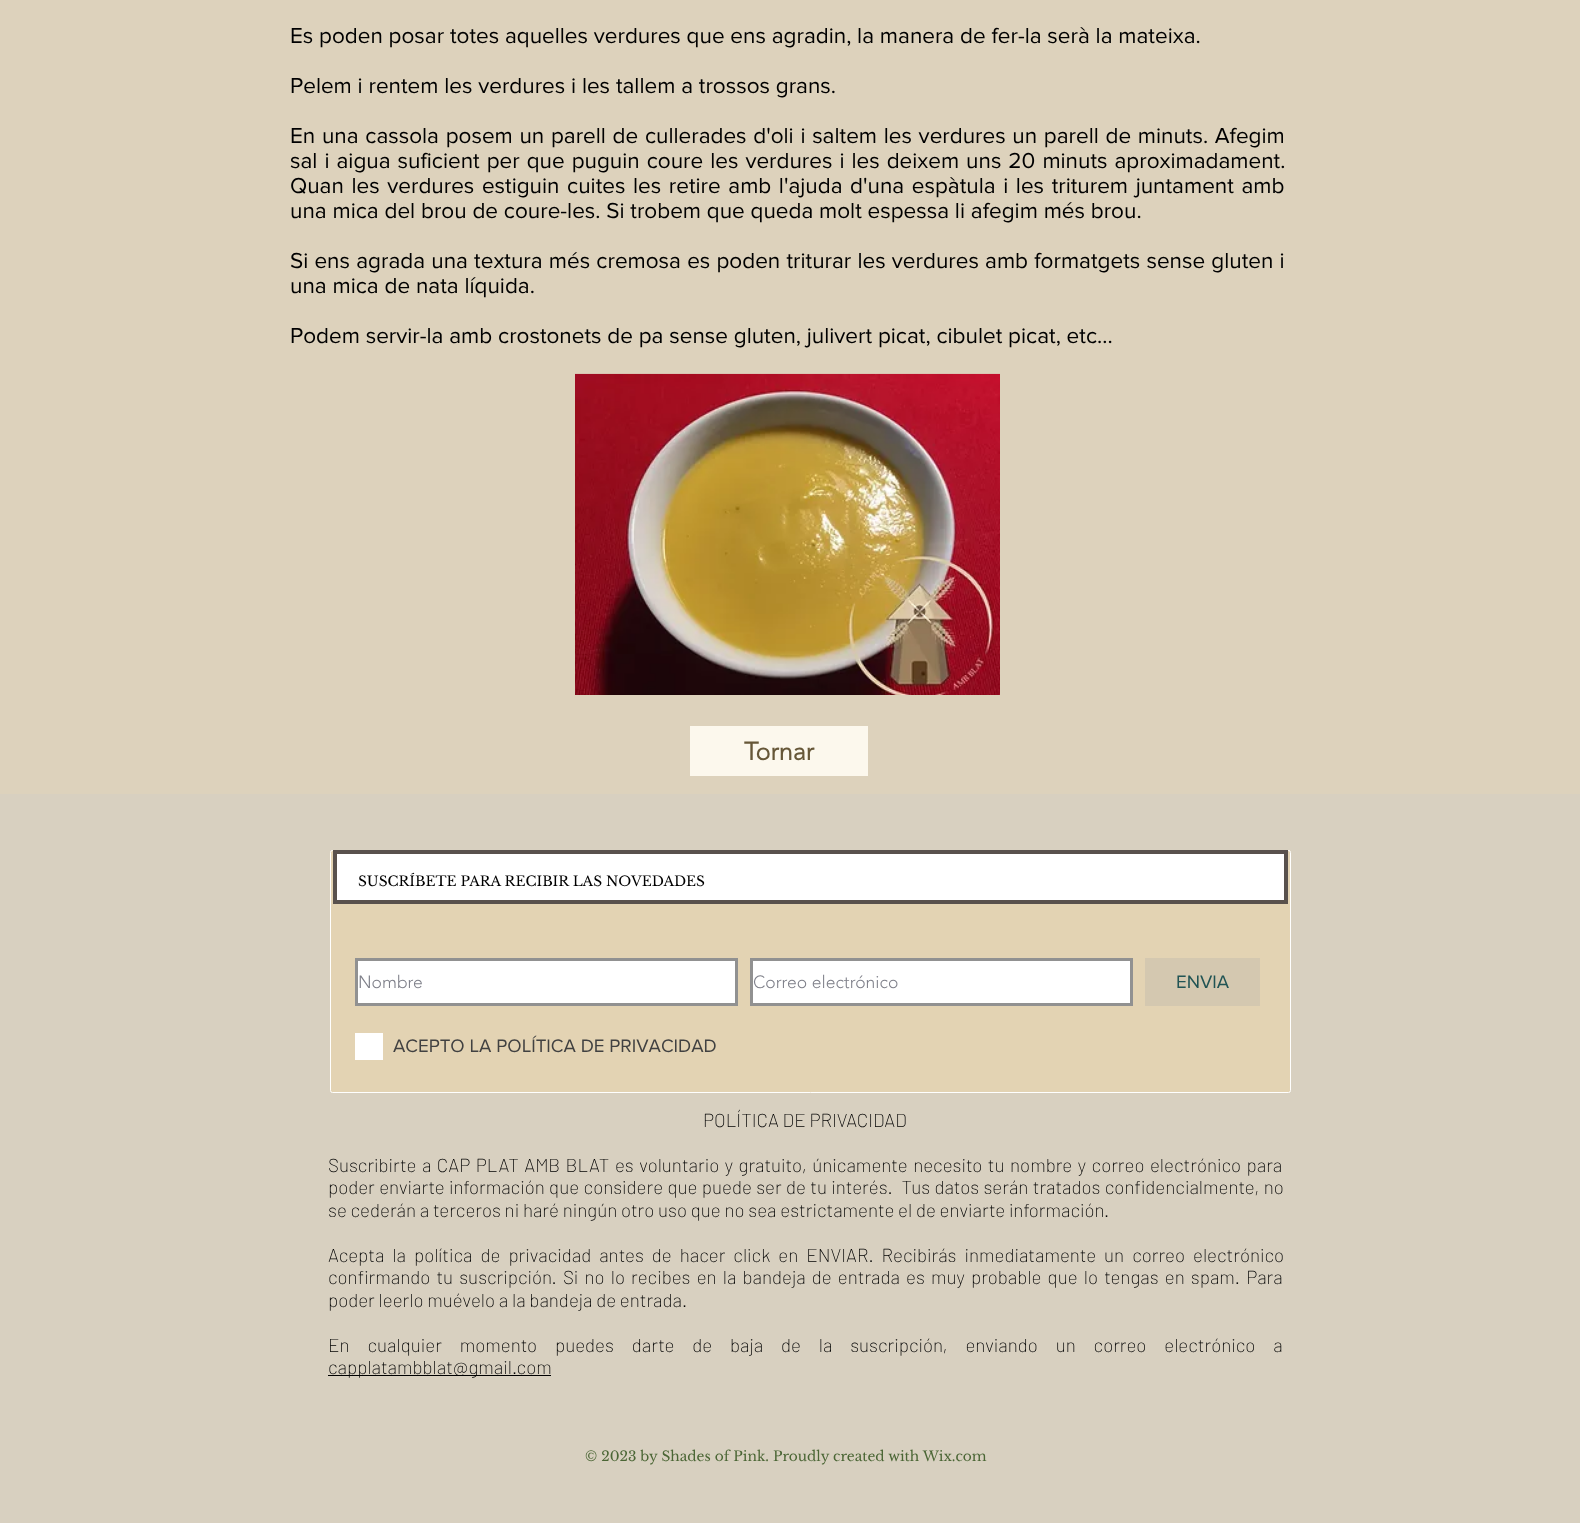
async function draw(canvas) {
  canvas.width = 1580;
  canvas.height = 1523;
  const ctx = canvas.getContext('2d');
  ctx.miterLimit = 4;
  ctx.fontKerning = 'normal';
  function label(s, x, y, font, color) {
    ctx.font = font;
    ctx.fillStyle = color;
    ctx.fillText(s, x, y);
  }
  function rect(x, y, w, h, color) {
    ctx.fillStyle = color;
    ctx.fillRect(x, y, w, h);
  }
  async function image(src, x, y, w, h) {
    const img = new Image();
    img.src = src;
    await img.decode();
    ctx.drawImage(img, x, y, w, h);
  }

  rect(0, 0, 1580, 1523, '#ddd2bc');
  label('Es poden posar totes aquelles verdures que ens agradin, la manera de fer-la serà la mateixa.', 290, 43, '22.5px "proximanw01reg"', '#000');
  label('Pelem i rentem les verdures i les tallem a trossos grans.', 290, 93, '22.5px "proximanw01reg"', '#000');
  ctx.wordSpacing = '0.9px';
  label('En una cassola posem un parell de cullerades d\'oli i saltem les verdures un parell de minuts. Afegim', 290, 143, '22.5px "proximanw01reg"', '#000');
  ctx.wordSpacing = '1.2px';
  label('sal i aigua suficient per que puguin coure les verdures i les deixem uns 20 minuts aproximadament.', 290, 168, '22.5px "proximanw01reg"', '#000');
  ctx.wordSpacing = '1.8px';
  label('Quan les verdures estiguin cuites les retire amb l\'ajuda d\'una espàtula i les triturem juntament amb', 290, 193, '22.5px "proximanw01reg"', '#000');
  ctx.wordSpacing = '0px';
  label('una mica del brou de coure-les. Si trobem que queda molt espessa li afegim més brou.', 290, 218, '22.5px "proximanw01reg"', '#000');
  ctx.wordSpacing = '0.4px';
  label('Si ens agrada una textura més cremosa es poden triturar les verdures amb formatgets sense gluten i', 290, 268, '22.5px "proximanw01reg"', '#000');
  ctx.wordSpacing = '0px';
  label('una mica de nata líquida.', 290, 293, '22.5px "proximanw01reg"', '#000');
  label('Podem servir-la amb crostonets de pa sense gluten, julivert picat, cibulet picat, etc...', 290, 343, '22.5px "proximanw01reg"', '#000');
  await image('assets/img1.png', 575, 373, 425, 322);
  rect(690, 726, 178, 50, '#fcf8ed');
  label('Tornar', 744, 760, 'bold 25px "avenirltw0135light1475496"', '#665738');
  rect(0, 794, 1580, 729, '#d8d0c0');
  ctx.fillStyle = '#e3d3b3';
  ctx.beginPath();
  ctx.roundRect(330.5, 850.5, 960, 242, 2);
  ctx.fill();
  ctx.strokeStyle = '#fffffe';
  ctx.stroke();
  ctx.fillStyle = '#fff';
  ctx.beginPath();
  ctx.rect(335, 852, 951, 50);
  ctx.fill();
  ctx.strokeStyle = '#59514d';
  ctx.lineWidth = 4;
  ctx.stroke();
  label('SUSCRÍBETE PARA RECIBIR LAS NOVEDADES', 358, 886, '13.75px Libre Baskerville', '#000');
  ctx.fillStyle = '#fff';
  ctx.beginPath();
  ctx.rect(356.5, 959.5, 380, 45);
  ctx.fill();
  ctx.strokeStyle = '#919191';
  ctx.lineWidth = 3;
  ctx.stroke();
  label('Nombre', 358, 988, '300 17.5px "avenirltw0135light1475496"', '#7f808a');
  ctx.fillStyle = '#fff';
  ctx.beginPath();
  ctx.rect(751.5, 959.5, 380, 45);
  ctx.fill();
  ctx.stroke();
  label('Correo electrónico', 753, 988, '300 17.5px "avenirltw0135light1475496"', '#7f808a');
  rect(1145, 958, 115, 48, '#d4c8b0');
  label('ENVIA', 1176, 988, '18.75px "proximanw01reg"', '#215454');
  rect(355, 1033, 28, 27, '#fff');
  label('ACEPTO LA POLÍTICA DE PRIVACIDAD', 393, 1052, '18.75px "proximanw01reg"', '#414141');
  label('POLÍTICA DE PRIVACIDAD', 703, 1127, '200 18.75px Barlow', '#000');
  ctx.wordSpacing = '1.8px';
  label('Suscribirte a CAP PLAT AMB BLAT es voluntario y gratuito, únicamente necesito tu nombre y correo electrónico para', 328, 1172, '200 18.75px Barlow', '#000');
  ctx.wordSpacing = '0.6px';
  label('poder enviarte información que considere que puede ser de tu interés.  Tus datos serán tratados confidencialmente, no', 328, 1194, '200 18.75px Barlow', '#000');
  ctx.wordSpacing = '0px';
  label('se cederán a terceros ni haré ningún otro uso que no sea estrictamente el de enviarte información.', 328, 1217, '200 18.75px Barlow', '#000');
  ctx.wordSpacing = '4.25px';
  label('Acepta la política de privacidad antes de hacer click en ENVIAR. Recibirás inmediatamente un correo electrónico', 328, 1262, '200 18.75px Barlow', '#000');
  ctx.wordSpacing = '2.4px';
  label('confirmando tu suscripción. Si no lo recibes en la bandeja de entrada es muy probable que lo tengas en spam. Para', 328, 1284, '200 18.75px Barlow', '#000');
  ctx.wordSpacing = '0px';
  label('poder leerlo muévelo a la bandeja de entrada.', 328, 1307, '200 18.75px Barlow', '#000');
  ctx.wordSpacing = '14.1px';
  label('En cualquier momento puedes darte de baja de la suscripción, enviando un correo electrónico a', 328, 1352, '200 18.75px Barlow', '#000');
  rect(328, 1375, 223, 1, '#000');
  ctx.wordSpacing = '0px';
  label('capplatambblat@gmail.com', 328, 1374, '200 18.75px Barlow', '#000');
  label('© 2023 by Shades of Pink. Proudly created with Wix.com', 585, 1461, '13.75px Libre Baskerville', '#4b6635');
}

draw(document.querySelector('canvas'));
